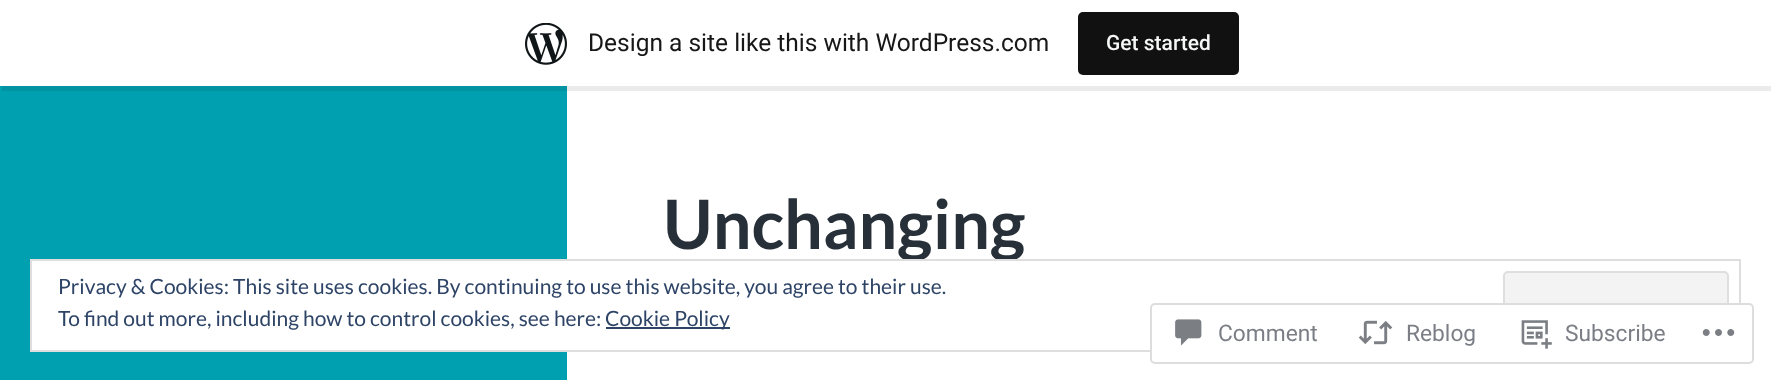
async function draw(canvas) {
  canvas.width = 1771;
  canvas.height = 380;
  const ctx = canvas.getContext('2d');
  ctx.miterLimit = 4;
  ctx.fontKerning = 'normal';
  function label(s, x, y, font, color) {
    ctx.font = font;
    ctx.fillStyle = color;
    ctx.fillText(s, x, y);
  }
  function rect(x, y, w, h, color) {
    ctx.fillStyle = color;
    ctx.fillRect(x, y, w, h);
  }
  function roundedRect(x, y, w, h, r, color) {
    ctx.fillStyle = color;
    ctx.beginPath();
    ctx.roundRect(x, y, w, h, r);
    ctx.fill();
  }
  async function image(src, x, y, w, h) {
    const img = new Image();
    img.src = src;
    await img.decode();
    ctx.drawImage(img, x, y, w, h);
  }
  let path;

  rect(0, 0, 1771, 380, '#00a0b0');
  rect(567, 86, 1204, 294, '#fff');
  ctx.fillStyle = '#00000014';
  path = new Path2D('M2 86V91H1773V5H1771V86Z');
  ctx.fill(path);
  rect(0, 0, 1771, 86, '#fff');
  await image('assets/img1.png', 525, 23, 42, 42);
  label('Design a site like this with WordPress.com', 588, 51, '24.5px Roboto', '#171717');
  roundedRect(1078, 12, 161, 63, 5, '#111');
  label('Get started', 1106, 50, '500 21px Roboto', '#f6f7f7');
  label('Unchanging', 663, 249, 'bold 68.25px Lato', '#272f38');
  rect(32, 261, 979, 89, '#fff');
  ctx.strokeStyle = '#dedede';
  ctx.lineWidth = 2;
  ctx.strokeRect(31, 260, 1709, 91);
  label('Privacy & Cookies: This site uses cookies. By continuing to use this website, you agree to their use.', 58, 294, '21px Lato', '#2e4467');
  ctx.fillStyle = '#f3f3f3';
  ctx.beginPath();
  ctx.roundRect(1504, 272, 224, 67, 4);
  ctx.fill();
  ctx.stroke();
  label('To find out more, including how to control cookies, see here:', 58, 326, '21px Lato', '#2e4467');
  rect(606, 327, 124, 2, '#2e4467');
  label('Cookie Policy', 605, 326, '21px Lato', '#2e4467');
  roundedRect(1150, 303, 604, 61, 5, '#fffffffa');
  ctx.beginPath();
  ctx.roundRect(1151, 304, 602, 59, 4);
  ctx.strokeStyle = '#dcdcdefa';
  ctx.stroke();
  await image('assets/img2.png', 1175, 319, 27, 27);
  label('Comment', 1218, 341, '22.75px Roboto', '#7b7f85');
  await image('assets/img3.png', 1358, 320, 35, 25);
  label('Reblog', 1406, 341, '22.75px Roboto', '#7b7f85');
  await image('assets/img4.png', 1521, 320, 31, 29);
  label('Subscribe', 1565, 341, '22.75px Roboto', '#7b7f85');
  await image('assets/img5.png', 1702, 329, 33, 7);
}

draw(document.querySelector('canvas'));
